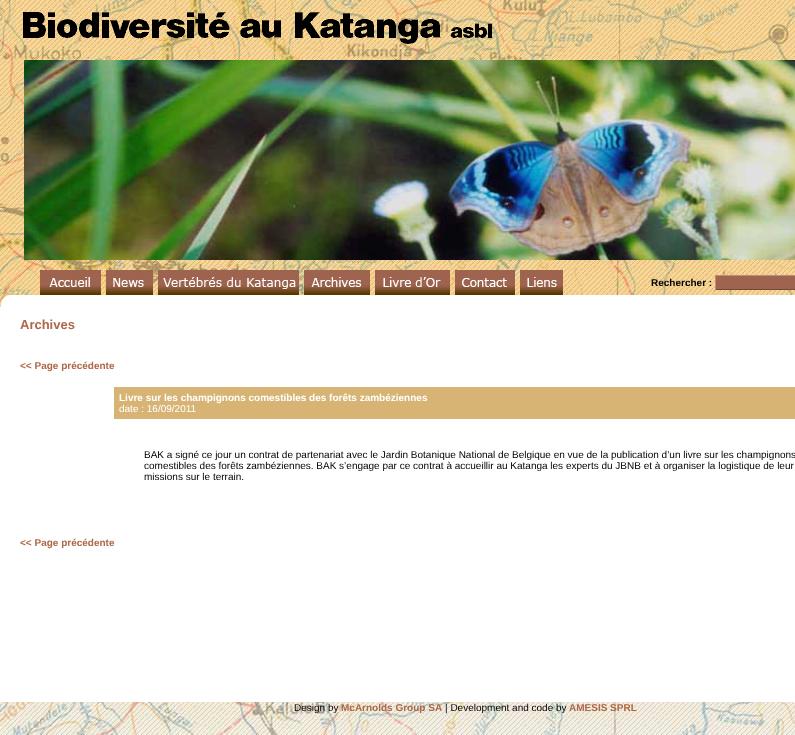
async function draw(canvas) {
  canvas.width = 795;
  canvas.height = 735;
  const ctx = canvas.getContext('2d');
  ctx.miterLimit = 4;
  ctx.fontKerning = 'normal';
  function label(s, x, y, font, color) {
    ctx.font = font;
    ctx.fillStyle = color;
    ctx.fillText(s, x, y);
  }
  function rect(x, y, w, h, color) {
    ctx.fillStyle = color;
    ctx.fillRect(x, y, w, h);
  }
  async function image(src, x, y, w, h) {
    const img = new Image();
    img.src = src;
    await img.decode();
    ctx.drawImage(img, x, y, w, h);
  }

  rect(0, 0, 795, 735, '#fff');
  await image('assets/img1.png', 0, 0, 795, 735);
  await image('assets/img2.png', 23, 12, 469, 32);
  await image('assets/img3.png', 24, 60, 771, 200);
  await image('assets/img4.png', 40, 270, 61, 25);
  await image('assets/img5.png', 106, 270, 47, 25);
  await image('assets/img6.png', 158, 270, 141, 25);
  await image('assets/img7.png', 304, 270, 66, 25);
  await image('assets/img8.png', 375, 270, 75, 25);
  await image('assets/img9.png', 455, 270, 60, 25);
  await image('assets/img10.png', 520, 270, 43, 25);
  label('Rechercher :', 651, 286, 'bold 10px Liberation Sans', '#000');
  rect(716, 276, 79, 13, '#9e644f');
  rect(715, 275, 80, 1, '#c08b78');
  rect(715, 289, 80, 1, '#754736');
  rect(715, 275, 1, 15, '#c08b78');
  await image('assets/img11.png', 0, 295, 795, 12);
  rect(0, 307, 795, 395, '#fff');
  label('Archives', 20, 329, 'bold 13px Liberation Sans', '#ae6747');
  label('<< Page précédente', 20, 369, 'bold 10px Liberation Sans', '#ae6747');
  rect(114, 387, 681, 32, '#d7b474');
  label('Livre sur les champignons comestibles des forêts zambéziennes', 119, 401, 'bold 10px Liberation Sans', '#fff');
  label('date : 16/09/2011', 119, 412, '10px Liberation Sans', '#fff');
  label('BAK a signé ce jour un contrat de partenariat avec le Jardin Botanique National de Belgique en vue de la publication d’un livre sur les champignons', 144, 458, '10px Liberation Sans', '#000');
  label('comestibles des forêts zambéziennes. BAK s’engage par ce contrat à accueillir au Katanga les experts du JBNB et à organiser la logistique de leur', 144, 469, '10px Liberation Sans', '#000');
  label('missions sur le terrain.', 144, 480, '10px Liberation Sans', '#000');
  label('<< Page précédente', 20, 546, 'bold 10px Liberation Sans', '#ae6747');
  label('Design by', 294, 711, '10px Liberation Sans', '#000');
  label('McArnolds Group SA', 341, 711, 'bold 10px Liberation Sans', '#ae6747');
  label('| Development and code by', 445, 711, '10px Liberation Sans', '#000');
  label('AMESIS SPRL', 569, 711, 'bold 10px Liberation Sans', '#ae6747');
}

draw(document.querySelector('canvas'));
